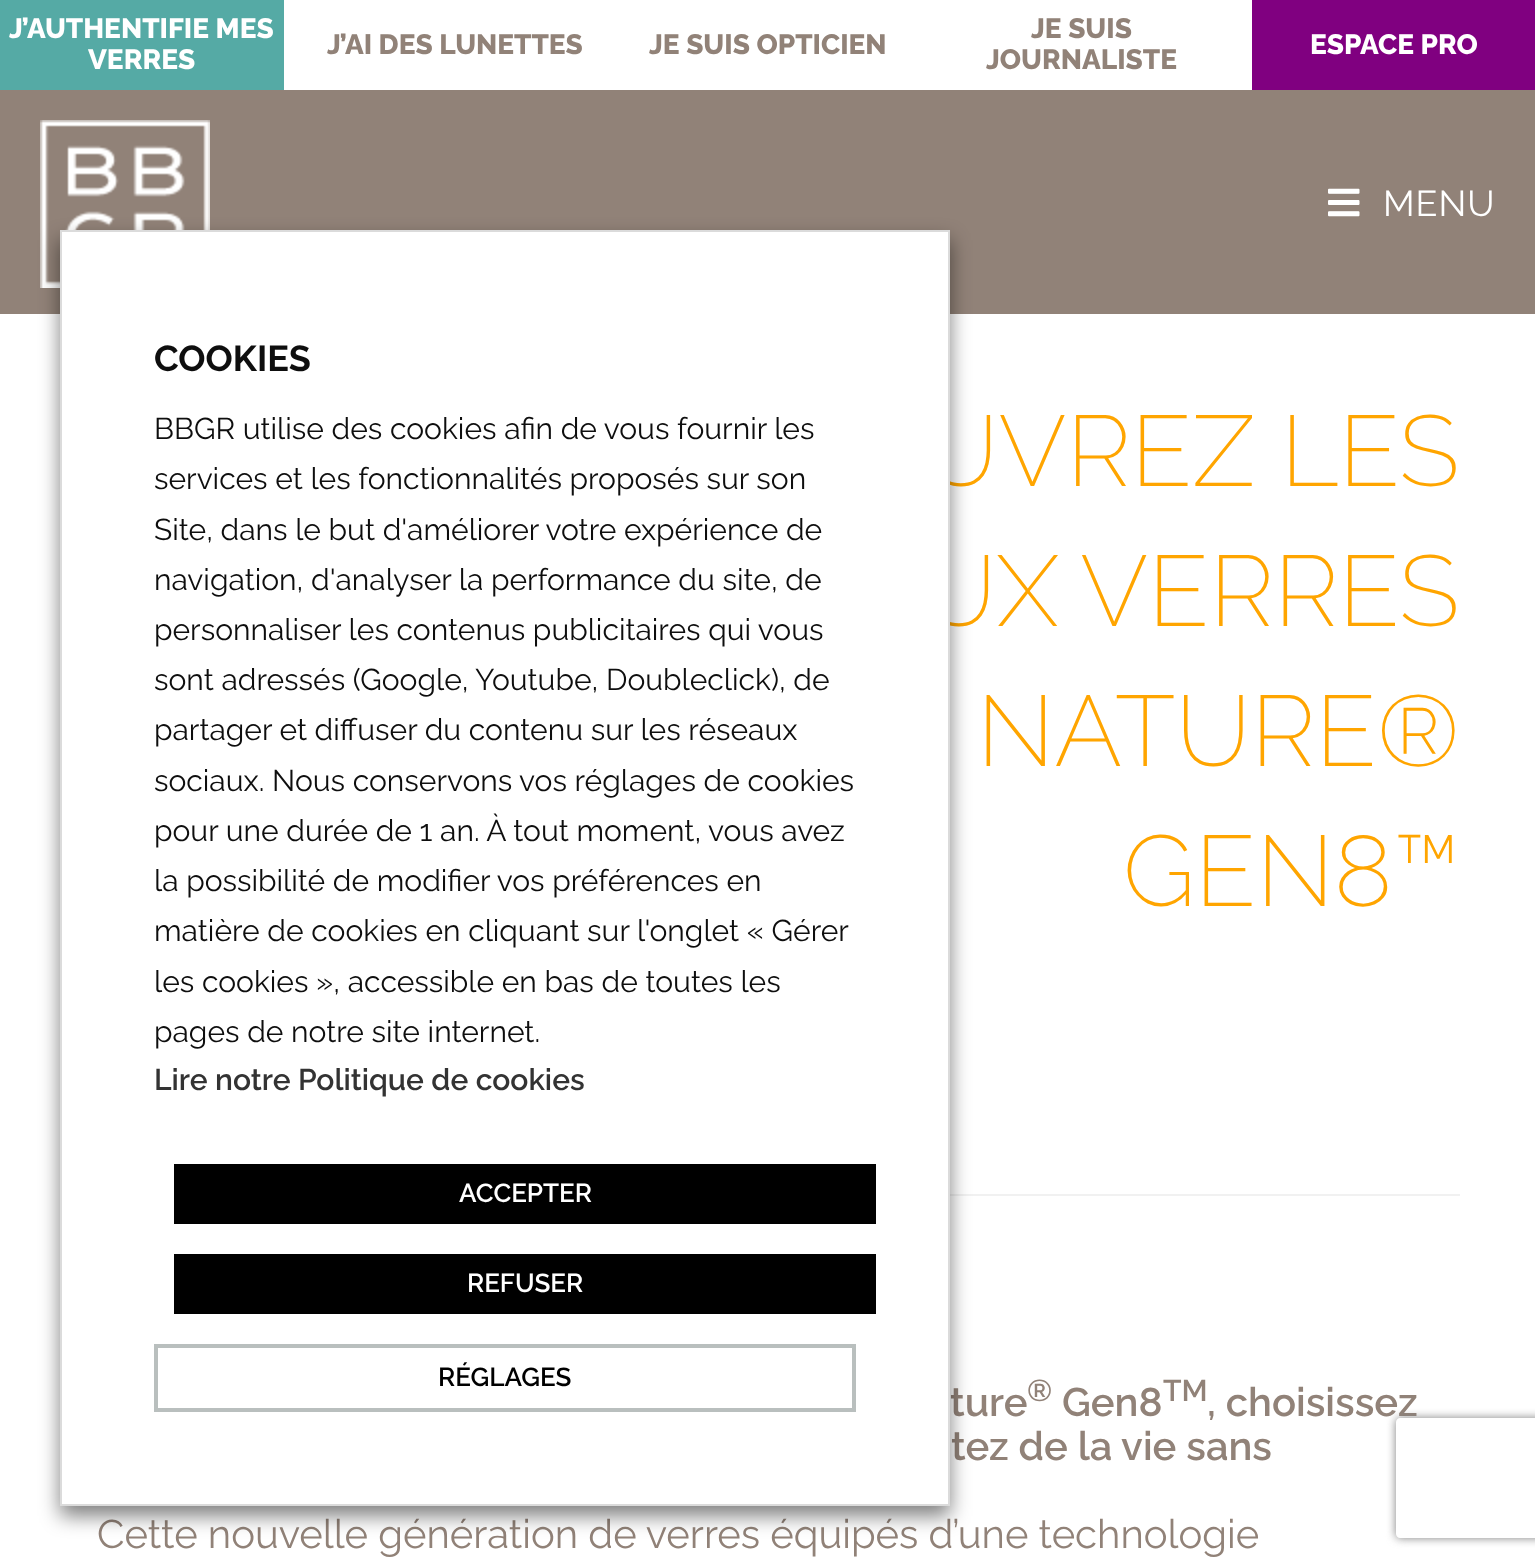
async function draw(canvas) {
  canvas.width = 1535;
  canvas.height = 1565;
  const ctx = canvas.getContext('2d');
  ctx.miterLimit = 4;
  ctx.fontKerning = 'normal';
  function label(s, x, y, font, color) {
    ctx.font = font;
    ctx.fillStyle = color;
    ctx.fillText(s, x, y);
  }
  function rect(x, y, w, h, color) {
    ctx.fillStyle = color;
    ctx.fillRect(x, y, w, h);
  }
  async function image(src, x, y, w, h) {
    const img = new Image();
    img.src = src;
    await img.decode();
    ctx.drawImage(img, x, y, w, h);
  }
  let path;

  rect(0, 0, 1535, 1565, '#fff');
  rect(0, 90, 1535, 224, '#918278');
  rect(0, 0, 284, 90, '#55aaa5');
  label('J’AUTHENTIFIE MES', 9, 38, '800 28px Raleway', '#fff');
  label('VERRES', 88, 69, '800 28px Raleway', '#fff');
  label('J’AI DES LUNETTES', 327, 54, '800 28px Raleway', '#918278');
  label('JE SUIS OPTICIEN', 649, 54, '800 28px Raleway', '#918278');
  label('JE SUIS', 1031, 38, '800 28px Raleway', '#918278');
  label('JOURNALISTE', 986, 69, '800 28px Raleway', '#918278');
  rect(1252, 0, 283, 90, '#800080');
  label('ESPACE PRO', 1310, 54, '800 28px Raleway', '#fff');
  await image('assets/img1.png', 40, 120, 170, 168);
  await image('assets/img2.png', 1328, 188, 32, 29);
  ctx.letterSpacing = '1px';
  label('MENU', 1383, 216, '36px Raleway', '#fff');
  ctx.letterSpacing = '0px';
  label('UVREZ LES', 923, 486, '200 100px Raleway', '#ffa500');
  label('UX VERRES', 921, 626, '200 100px Raleway', '#ffa500');
  label('NATURE®', 977, 766, '200 100px Raleway', '#ffa500');
  label('GEN8™', 1123, 906, '200 100px Raleway', '#ffa500');
  rect(950, 1194, 510, 2, '#f1f1f1');
  label('ture', 950, 1416, '600 40px Raleway', '#918278');
  label('®', 1027, 1401, '600 30px Raleway', '#918278');
  label('Gen8', 1062, 1416, '600 40px Raleway', '#918278');
  label('TM', 1163, 1401, '600 30px Raleway', '#918278');
  label(', choisissez', 1207, 1416, '600 40px Raleway', '#918278');
  label('tez de la vie sans', 951, 1460, '600 40px Raleway', '#918278');
  label('Cette nouvelle génération de verres équipés d’une technologie', 97, 1548, '40px Raleway', '#918278');
  ctx.fillStyle = '#00000080';
  ctx.filter = 'blur(10px)';
  ctx.beginPath();
  ctx.rect(60, 240, 890, 1276);
  ctx.fill();
  ctx.filter = 'none';
  ctx.fillStyle = '#fff';
  ctx.beginPath();
  ctx.rect(61, 231, 888, 1274);
  ctx.fill();
  ctx.strokeStyle = '#dbdbdb';
  ctx.lineWidth = 2;
  ctx.stroke();
  label('COOKIES', 154, 371, 'bold 36px Raleway', '#0e0e0e');
  label('BBGR utilise des cookies afin de vous fournir les', 154, 439, '30px Raleway', '#0e0e0e');
  label('services et les fonctionnalités proposés sur son', 154, 489, '30px Raleway', '#0e0e0e');
  label('Site, dans le but d\'améliorer votre expérience de', 154, 540, '30px Raleway', '#0e0e0e');
  label('navigation, d\'analyser la performance du site, de', 154, 590, '30px Raleway', '#0e0e0e');
  label('personnaliser les contenus publicitaires qui vous', 154, 640, '30px Raleway', '#0e0e0e');
  label('sont adressés (Google, Youtube, Doubleclick), de', 154, 690, '30px Raleway', '#0e0e0e');
  label('partager et diffuser du contenu sur les réseaux', 154, 740, '30px Raleway', '#0e0e0e');
  label('sociaux. Nous conservons vos réglages de cookies', 154, 791, '30px Raleway', '#0e0e0e');
  label('pour une durée de 1 an. À tout moment, vous avez', 154, 841, '30px Raleway', '#0e0e0e');
  label('la possibilité de modifier vos préférences en', 154, 891, '30px Raleway', '#0e0e0e');
  label('matière de cookies en cliquant sur l\'onglet « Gérer', 154, 941, '30px Raleway', '#0e0e0e');
  label('les cookies », accessible en bas de toutes les', 154, 992, '30px Raleway', '#0e0e0e');
  label('pages de notre site internet.', 154, 1042, '30px Raleway', '#0e0e0e');
  label('Lire notre Politique de cookies', 154, 1090, '600 30px Raleway', '#333');
  rect(174, 1164, 702, 60, '#000');
  label('ACCEPTER', 459, 1202, '600 26px Raleway', '#fff');
  rect(174, 1254, 702, 60, '#000');
  label('REFUSER', 467, 1292, '600 26px Raleway', '#fff');
  ctx.strokeStyle = '#b9bfbe';
  ctx.lineWidth = 4;
  ctx.strokeRect(156, 1346, 698, 64);
  label('RÉGLAGES', 438, 1386, '600 26px Raleway', '#000');
  ctx.save();
  path = new Path2D('M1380 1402H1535V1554H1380ZM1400 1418H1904C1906 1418 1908 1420 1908 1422V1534C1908 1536 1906 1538 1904 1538H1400C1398 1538 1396 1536 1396 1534V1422C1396 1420 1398 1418 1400 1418Z');
  ctx.clip(path, 'evenodd');
  ctx.fillStyle = '#808080';
  ctx.filter = 'blur(5px)';
  ctx.beginPath();
  ctx.roundRect(1396, 1418, 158, 120, 4);
  ctx.fill();
  ctx.filter = 'none';
  ctx.restore();
}

draw(document.querySelector('canvas'));
